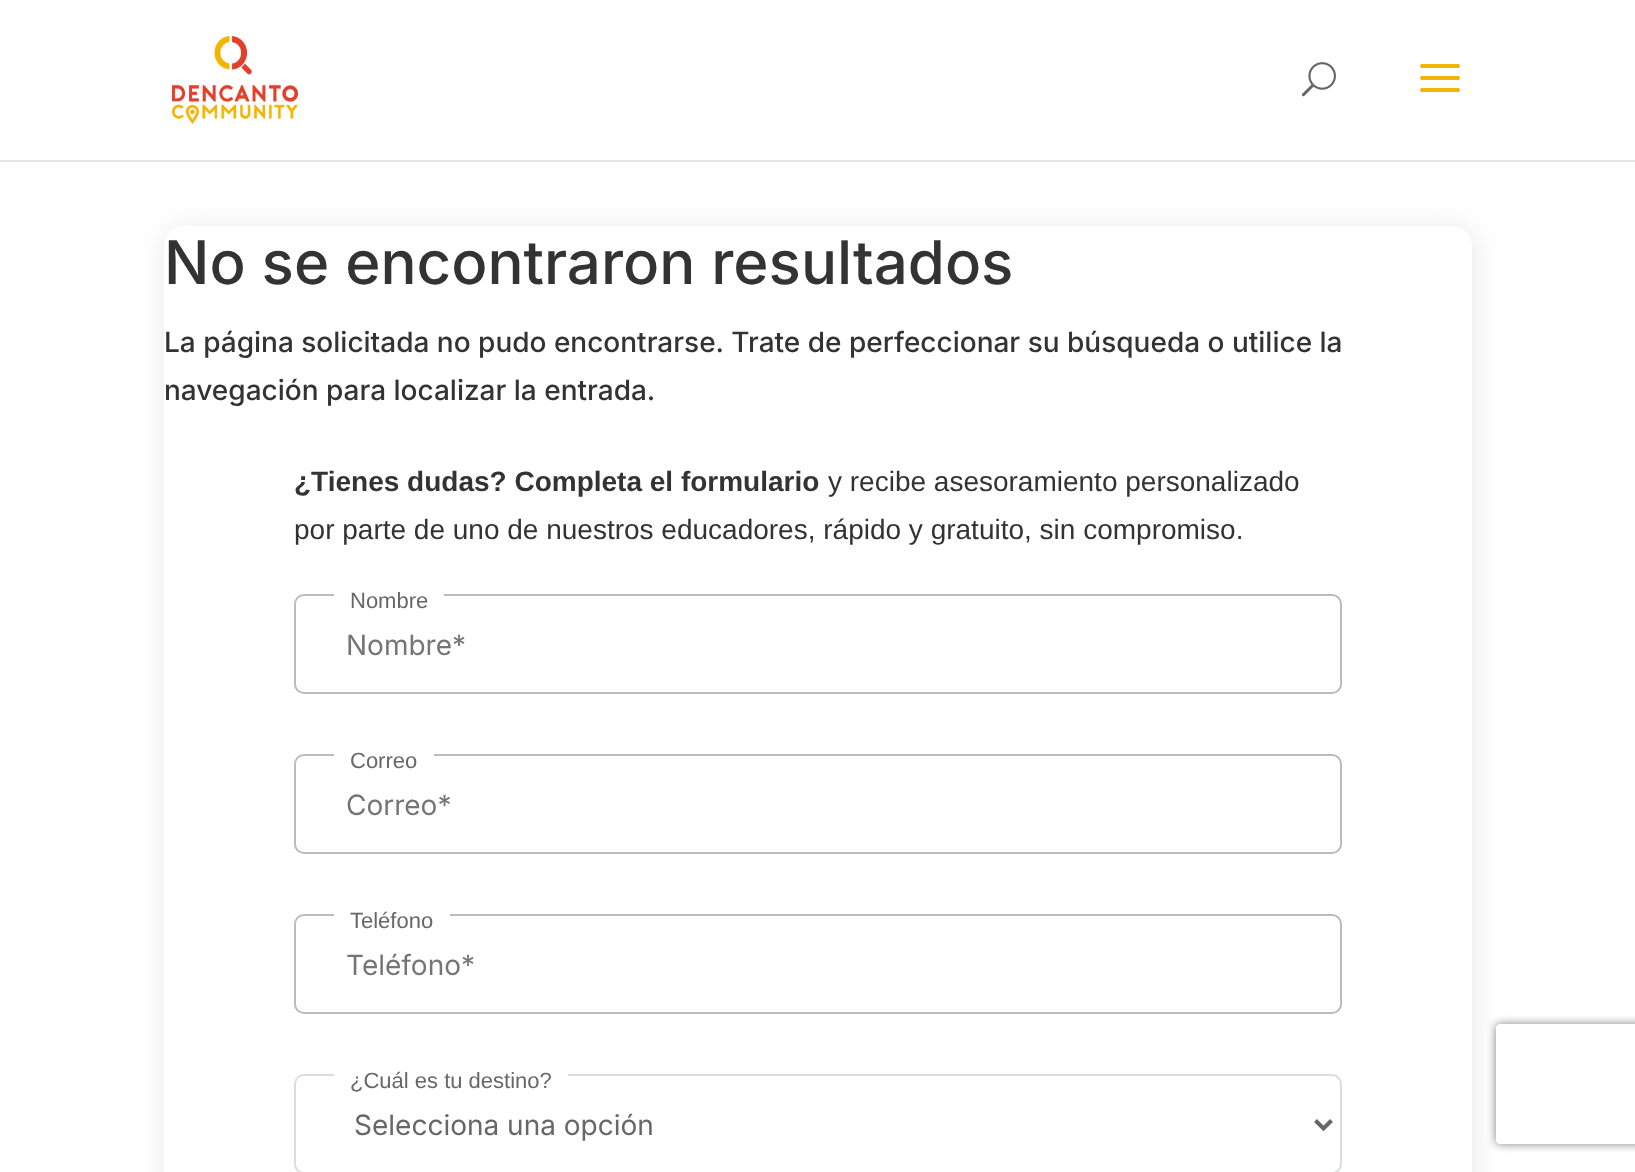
async function draw(canvas) {
  canvas.width = 1635;
  canvas.height = 1172;
  const ctx = canvas.getContext('2d');
  ctx.miterLimit = 4;
  ctx.fontKerning = 'normal';
  function label(s, x, y, font, color) {
    ctx.font = font;
    ctx.fillStyle = color;
    ctx.fillText(s, x, y);
  }
  function rect(x, y, w, h, color) {
    ctx.fillStyle = color;
    ctx.fillRect(x, y, w, h);
  }
  function roundedRect(x, y, w, h, r, color) {
    ctx.fillStyle = color;
    ctx.beginPath();
    ctx.roundRect(x, y, w, h, r);
    ctx.fill();
  }
  async function image(src, x, y, w, h) {
    const img = new Image();
    img.src = src;
    await img.decode();
    ctx.drawImage(img, x, y, w, h);
  }
  let path;

  rect(0, 0, 1635, 1172, '#fff');
  rect(0, 160, 1635, 2, '#e6e6e6');
  await image('assets/img1.png', 172, 36, 126, 88);
  await image('assets/img2.png', 1301, 62, 35, 35);
  await image('assets/img3.png', 1420, 64, 40, 28);
  ctx.fillStyle = '#00000017';
  ctx.filter = 'blur(14px)';
  ctx.beginPath();
  ctx.roundRect(166, 228, 1308, 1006, 20);
  ctx.fill();
  ctx.filter = 'none';
  roundedRect(164, 226, 1308, 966, 20, '#fff');
  label('No se encontraron resultados', 164, 284, '500 60px Inter', '#333');
  label('La página solicitada no pudo encontrarse. Trate de perfeccionar su búsqueda o utilice la', 164, 352, '500 28px Inter', '#333');
  label('navegación para localizar la entrada.', 164, 400, '500 28px Inter', '#333');
  label('¿Tienes dudas? Completa el formulario', 294, 491, 'bold 28px Liberation Sans', '#333');
  label('y recibe asesoramiento personalizado', 828, 491, '28px Liberation Sans', '#333');
  label('por parte de uno de nuestros educadores, rápido y gratuito, sin compromiso.', 294, 539, '28px Liberation Sans', '#333');
  ctx.beginPath();
  ctx.roundRect(295, 595, 1046, 98, 9);
  ctx.strokeStyle = '#bbb';
  ctx.lineWidth = 2;
  ctx.stroke();
  rect(334, 594, 110, 2, '#fff');
  label('Nombre', 350, 608, '22px Liberation Sans', '#676767');
  label('Nombre*', 346, 655, '28px Inter', '#757575');
  ctx.beginPath();
  ctx.roundRect(295, 755, 1046, 98, 9);
  ctx.stroke();
  rect(334, 754, 100, 2, '#fff');
  label('Correo', 350, 768, '22px Liberation Sans', '#676767');
  label('Correo*', 346, 815, '28px Inter', '#757575');
  ctx.beginPath();
  ctx.roundRect(295, 915, 1046, 98, 9);
  ctx.stroke();
  rect(334, 914, 116, 2, '#fff');
  label('Teléfono', 350, 928, '22px Liberation Sans', '#676767');
  label('Teléfono*', 346, 975, '28px Inter', '#757575');
  ctx.beginPath();
  ctx.roundRect(295, 1075, 1046, 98, 9);
  ctx.strokeStyle = '#dadce0';
  ctx.stroke();
  rect(334, 1074, 234, 2, '#fff');
  label('¿Cuál es tu destino?', 350, 1088, '22px Liberation Sans', '#676767');
  path = new Path2D('M1315.5 1120.5L1323.5 1128.5L1331.5 1120.5');
  ctx.strokeStyle = '#676767';
  ctx.lineWidth = 4;
  ctx.stroke(path);
  label('Selecciona una opción', 354, 1135, '28px Inter', '#676767');
  ctx.save();
  path = new Path2D('M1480 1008H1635V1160H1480ZM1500 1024H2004C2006 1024 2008 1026 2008 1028V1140C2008 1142 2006 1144 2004 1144H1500C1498 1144 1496 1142 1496 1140V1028C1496 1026 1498 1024 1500 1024Z');
  ctx.clip(path, 'evenodd');
  ctx.fillStyle = '#808080';
  ctx.filter = 'blur(5px)';
  ctx.beginPath();
  ctx.roundRect(1496, 1024, 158, 120, 4);
  ctx.fill();
  ctx.filter = 'none';
  ctx.restore();
}

draw(document.querySelector('canvas'));
